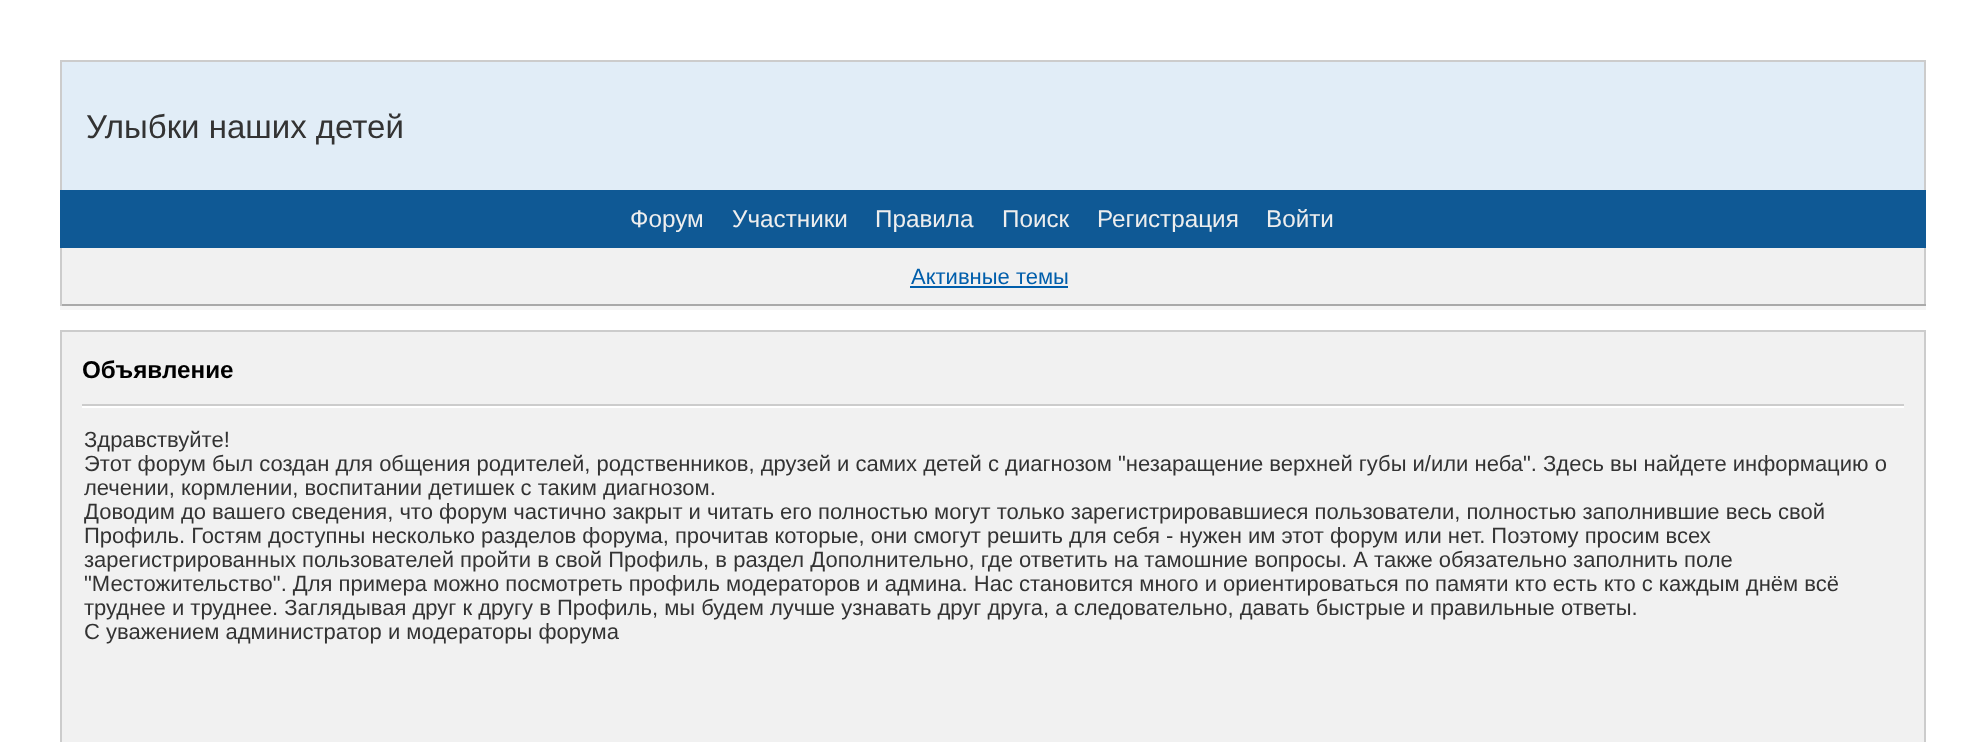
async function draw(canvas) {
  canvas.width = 1986;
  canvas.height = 742;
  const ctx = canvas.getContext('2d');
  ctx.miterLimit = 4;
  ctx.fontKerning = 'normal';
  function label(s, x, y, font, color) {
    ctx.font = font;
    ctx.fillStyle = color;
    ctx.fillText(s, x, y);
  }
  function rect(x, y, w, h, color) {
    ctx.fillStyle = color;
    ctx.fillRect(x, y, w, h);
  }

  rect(0, 0, 1986, 742, '#fff');
  rect(62, 62, 1862, 128, '#e1edf7');
  rect(60, 60, 1866, 2, '#ccc');
  rect(1924, 60, 2, 130, '#ccc');
  rect(60, 60, 2, 130, '#ccc');
  label('Улыбки наших детей', 86, 138, '33px Liberation Sans', '#333');
  rect(60, 190, 1866, 58, '#0f5995');
  label('Форум', 630, 227, '24.25px Liberation Sans', '#eee');
  label('Участники', 732, 227, '24.25px Liberation Sans', '#eee');
  label('Правила', 875, 227, '24.25px Liberation Sans', '#eee');
  label('Поиск', 1002, 227, '24.25px Liberation Sans', '#eee');
  label('Регистрация', 1097, 227, '24.25px Liberation Sans', '#eee');
  label('Войти', 1266, 227, '24.25px Liberation Sans', '#eee');
  rect(60, 306, 1866, 4, '#f5f5f5');
  rect(62, 248, 1862, 56, '#f1f1f1');
  rect(1924, 248, 2, 58, '#ccc');
  rect(60, 304, 1866, 2, '#aaa');
  rect(60, 248, 2, 58, '#ccc');
  label('Активные темы', 911, 284, '22px Liberation Sans', '#005eab');
  rect(910, 286, 158, 2, '#005eab');
  rect(62, 332, 1862, 410, '#f1f1f1');
  rect(82, 406, 1822, 2, '#fff');
  rect(82, 404, 1822, 2, '#ccc');
  label('Объявление', 82, 378, 'bold 24.25px Liberation Sans', '#000');
  rect(60, 330, 1866, 2, '#ccc');
  rect(1924, 330, 2, 412, '#ccc');
  rect(60, 330, 2, 412, '#ccc');
  label('Здравствуйте!', 84, 447, '22px Liberation Sans', '#333');
  label('Этот форум был создан для общения родителей, родственников, друзей и самих детей с диагнозом "незаращение верхней губы и/или неба". Здесь вы найдете информацию о', 84, 471, '22px Liberation Sans', '#333');
  label('лечении, кормлении, воспитании детишек с таким диагнозом.', 84, 495, '22px Liberation Sans', '#333');
  label('Доводим до вашего сведения, что форум частично закрыт и читать его полностью могут только зарегистрировавшиеся пользователи, полностью заполнившие весь свой', 84, 519, '22px Liberation Sans', '#333');
  label('Профиль. Гостям доступны несколько разделов форума, прочитав которые, они смогут решить для себя - нужен им этот форум или нет. Поэтому просим всех', 84, 543, '22px Liberation Sans', '#333');
  label('зарегистрированных пользователей пройти в свой Профиль, в раздел Дополнительно, где ответить на тамошние вопросы. А также обязательно заполнить поле', 84, 567, '22px Liberation Sans', '#333');
  label('"Местожительство". Для примера можно посмотреть профиль модераторов и админа. Нас становится много и ориентироваться по памяти кто есть кто с каждым днём всё', 84, 591, '22px Liberation Sans', '#333');
  label('труднее и труднее. Заглядывая друг к другу в Профиль, мы будем лучше узнавать друг друга, а следовательно, давать быстрые и правильные ответы.', 84, 615, '22px Liberation Sans', '#333');
  label('С уважением администратор и модераторы форума', 84, 639, '22px Liberation Sans', '#333');
}

draw(document.querySelector('canvas'));
